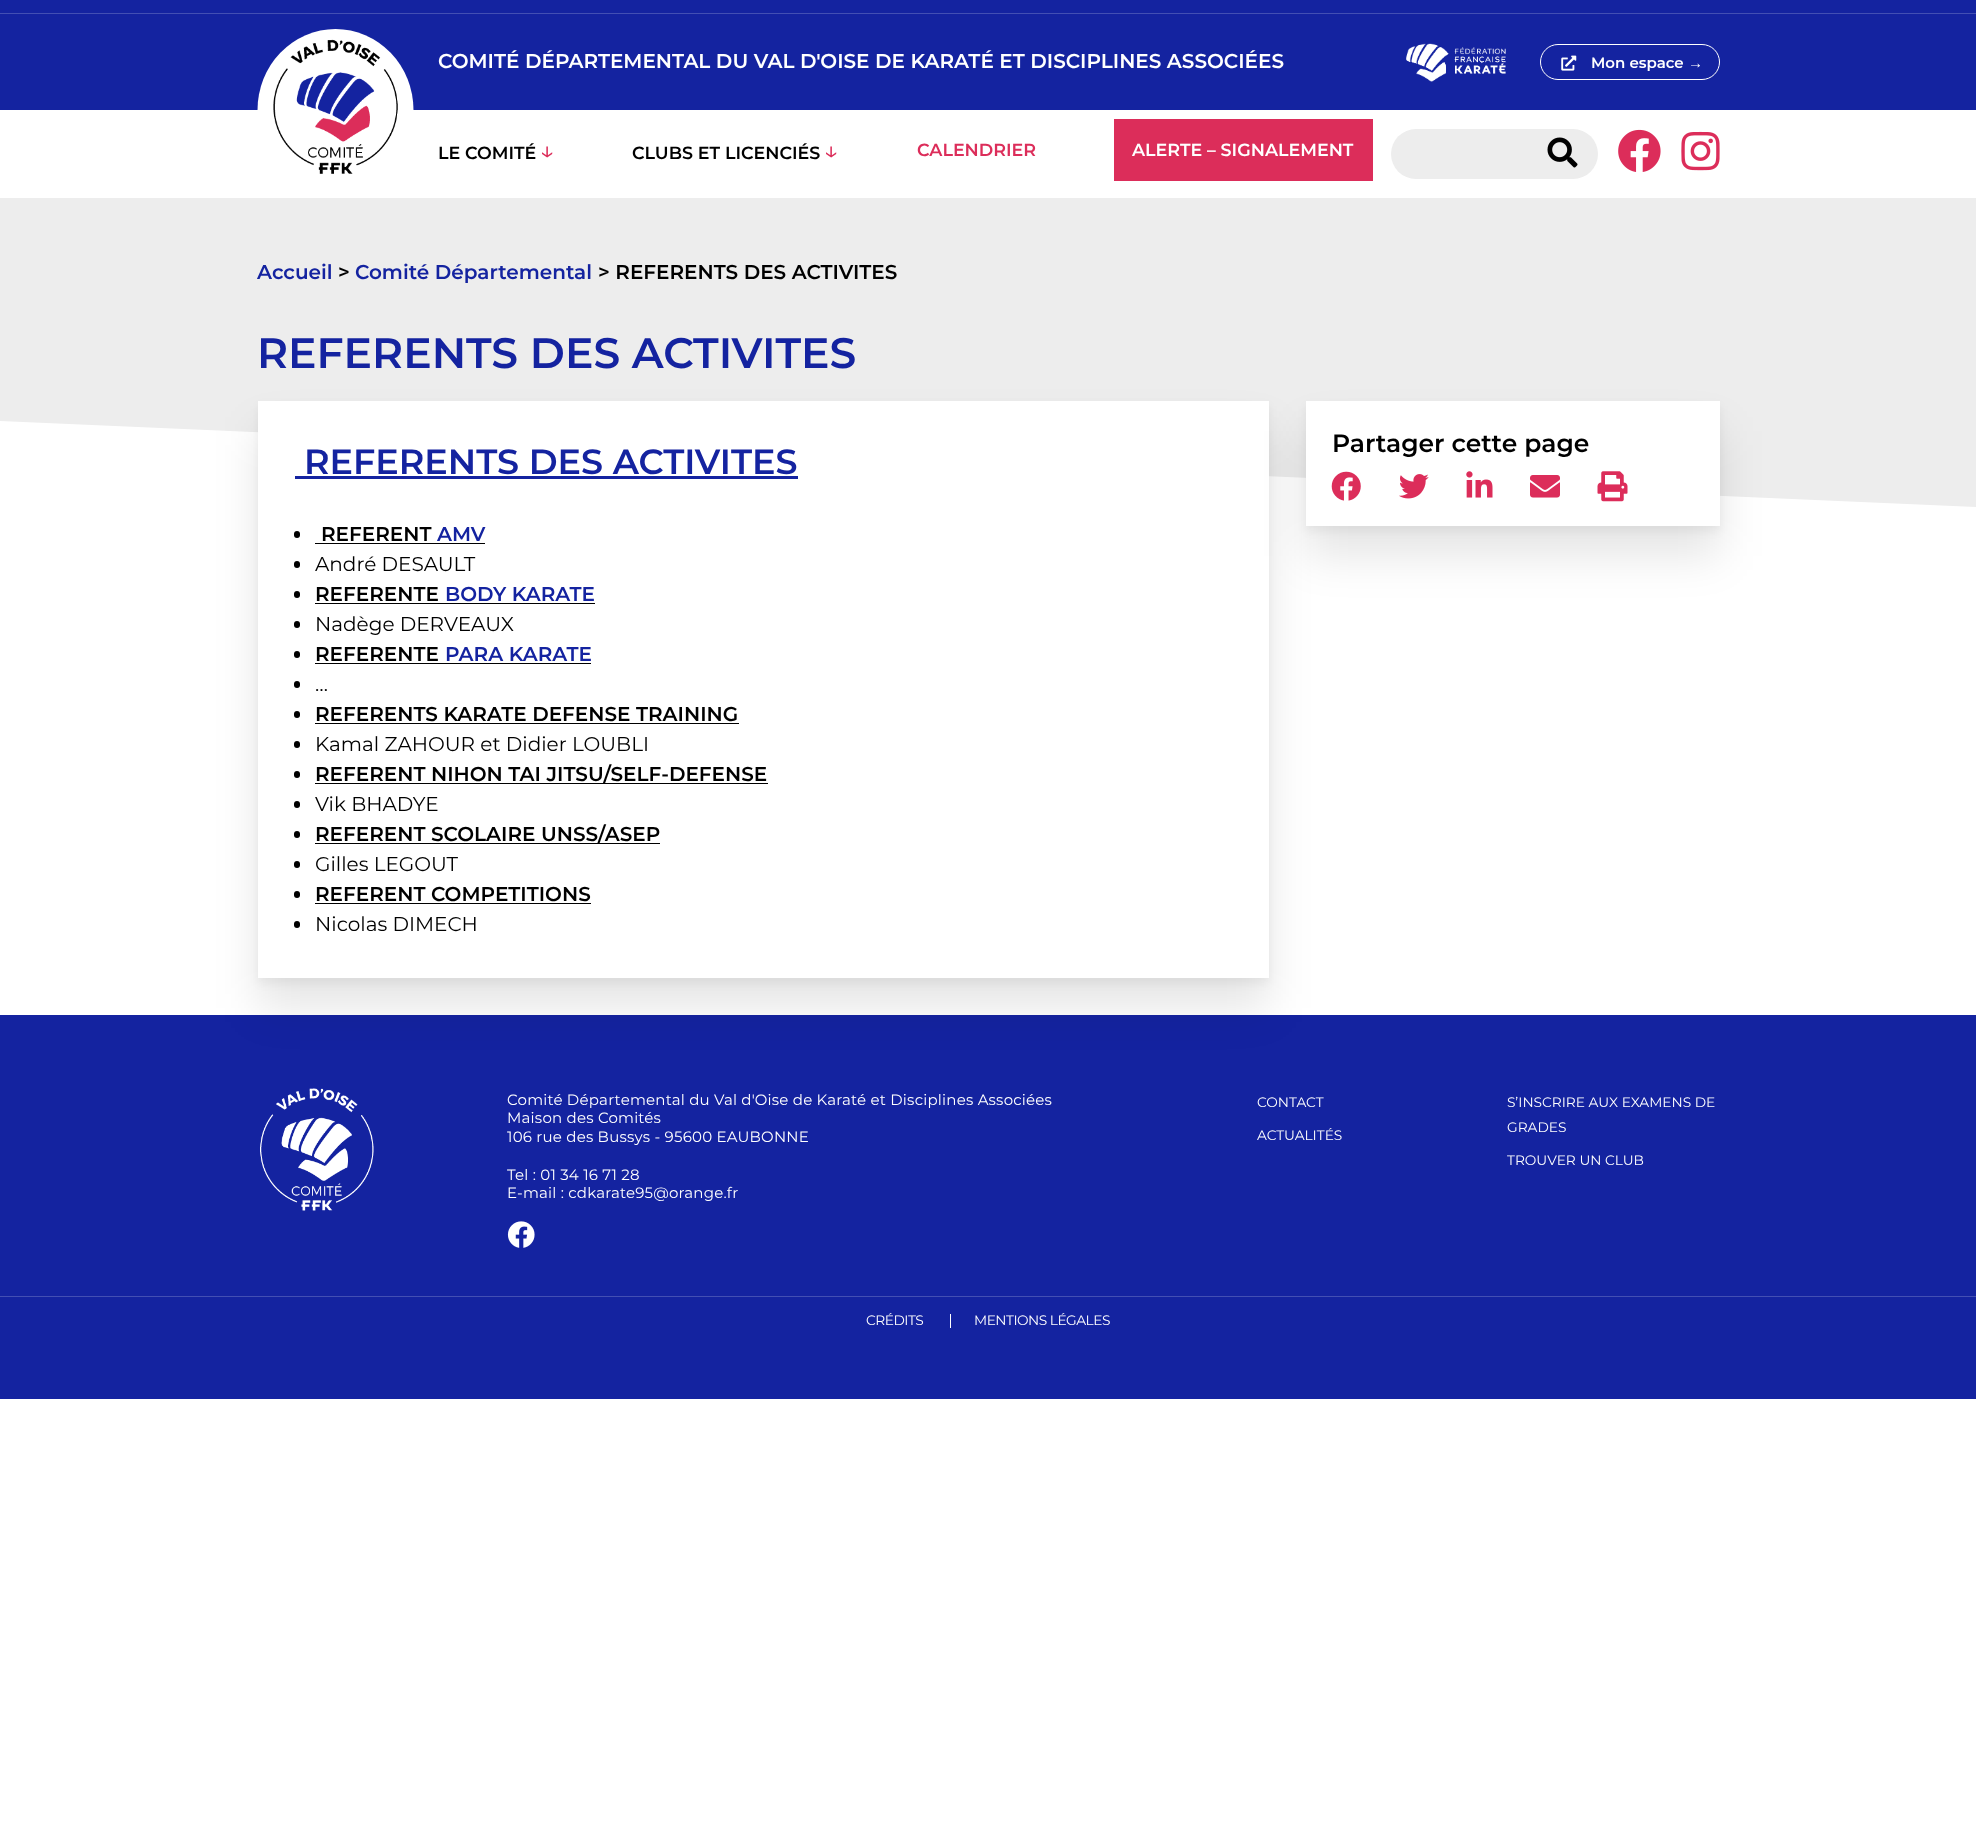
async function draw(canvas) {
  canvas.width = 1976;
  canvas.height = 1837;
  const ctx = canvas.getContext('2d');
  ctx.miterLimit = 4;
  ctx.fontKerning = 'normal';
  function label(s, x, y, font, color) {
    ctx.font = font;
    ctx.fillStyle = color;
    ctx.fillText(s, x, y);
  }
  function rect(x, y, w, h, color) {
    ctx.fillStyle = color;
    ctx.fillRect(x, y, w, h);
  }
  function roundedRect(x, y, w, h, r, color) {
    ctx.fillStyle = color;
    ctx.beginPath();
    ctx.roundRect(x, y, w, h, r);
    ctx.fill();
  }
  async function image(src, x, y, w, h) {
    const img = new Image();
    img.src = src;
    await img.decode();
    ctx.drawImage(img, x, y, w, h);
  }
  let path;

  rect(0, 0, 1976, 1837, '#fff');
  ctx.fillStyle = '#ededed';
  path = new Path2D('M0-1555L1976-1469V507L0 421Z');
  ctx.fill(path);
  rect(0, 0, 1976, 110, '#1423a0');
  rect(0, 13, 1976, 1, '#434fb3');
  rect(0, 110, 1976, 88, '#fff');
  ctx.beginPath();
  ctx.ellipse(335.5, 110, 78, 81, 0, 0, 2 * Math.PI);
  ctx.fill();
  await image('assets/img1.png', 273, 39, 125, 135);
  label('COMITÉ DÉPARTEMENTAL DU VAL D\'OISE DE KARATÉ ET DISCIPLINES ASSOCIÉES', 438, 68, '600 20px Montserrat', '#fff');
  await image('assets/img2.png', 1406, 43, 100, 39);
  ctx.beginPath();
  ctx.roundRect(1540.5, 44.5, 179, 35, 17.5);
  ctx.strokeStyle = '#fff';
  ctx.stroke();
  await image('assets/img3.png', 1561, 55, 16, 16);
  label('Mon espace', 1591, 68, '600 15px Montserrat', '#fff');
  label('→', 1688, 68, 'bold 15px Liberation Sans', '#fff');
  label('LE COMITÉ', 438, 159, '600 17.5px Montserrat', '#000');
  label('↓', 539, 159, '26px Montserrat', '#dc2d5a');
  label('CLUBS ET LICENCIÉS', 632, 159, '600 17.5px Montserrat', '#000');
  label('↓', 823, 159, '26px Montserrat', '#dc2d5a');
  label('CALENDRIER', 917, 156, '600 17.5px Montserrat', '#dc2d5a');
  rect(1114, 119, 259, 62, '#dc2d5a');
  label('ALERTE – SIGNALEMENT', 1132, 156, '600 17.5px Montserrat', '#fff');
  roundedRect(1391, 129, 207, 50, 25, '#ededed');
  await image('assets/img4.png', 1547, 137, 31, 31);
  await image('assets/img5.png', 1618, 129, 43, 43);
  await image('assets/img6.png', 1681, 131, 39, 40);
  label('Accueil', 257, 279, '600 20px Montserrat', '#1423a0');
  label('>', 338, 279, '600 20px Montserrat', '#000');
  label('Comité Départemental', 355, 279, '600 20px Montserrat', '#1423a0');
  label('> REFERENTS DES ACTIVITES', 598, 279, '600 20px Montserrat', '#000');
  label('REFERENTS DES ACTIVITES', 257, 368, '600 42.5px Montserrat', '#1423a0');
  rect(0, 1015, 1976, 384, '#1423a0');
  ctx.fillStyle = '#0000001a';
  ctx.filter = 'blur(22px)';
  ctx.beginPath();
  ctx.rect(258, 431, 1011, 577);
  ctx.fill();
  ctx.filter = 'none';
  ctx.fillStyle = '#0000000d';
  ctx.filter = 'blur(5px)';
  ctx.beginPath();
  ctx.rect(258, 406, 1011, 577);
  ctx.fill();
  ctx.filter = 'none';
  rect(258, 401, 1011, 577, '#fff');
  ctx.fillStyle = '#0000001a';
  ctx.filter = 'blur(22px)';
  ctx.beginPath();
  ctx.rect(1306, 431, 414, 125);
  ctx.fill();
  ctx.filter = 'none';
  ctx.fillStyle = '#0000000d';
  ctx.filter = 'blur(5px)';
  ctx.beginPath();
  ctx.rect(1306, 406, 414, 125);
  ctx.fill();
  ctx.filter = 'none';
  rect(1306, 401, 414, 125, '#fff');
  label('Partager cette page', 1332, 452, '600 25px Montserrat', '#000');
  await image('assets/img7.png', 1331, 471, 30, 30);
  await image('assets/img8.png', 1399, 474, 30, 25);
  await image('assets/img9.png', 1466, 471, 27, 27);
  await image('assets/img10.png', 1530, 475, 30, 23);
  await image('assets/img11.png', 1597, 471, 31, 31);
  label('REFERENTS DES ACTIVITES', 304, 474, '600 35px Montserrat', '#1423a0');
  rect(295, 476, 503, 3, '#1423a0');
  roundedRect(294, 531, 6, 7, 3, '#000');
  label('REFERENT', 321, 541, '600 20px Montserrat', '#000');
  rect(315, 543, 170, 1, '#000');
  label('AMV', 437, 541, '600 20px Montserrat', '#1423a0');
  roundedRect(294, 561, 6, 7, 3, '#000');
  label('André DESAULT', 315, 571, '20px Montserrat', '#000');
  roundedRect(294, 591, 6, 7, 3, '#000');
  label('REFERENTE', 315, 601, '600 20px Montserrat', '#000');
  rect(315, 603, 280, 1, '#000');
  label('BODY KARATE', 445, 601, '600 20px Montserrat', '#1423a0');
  roundedRect(294, 621, 6, 7, 3, '#000');
  label('Nadège DERVEAUX', 315, 631, '20px Montserrat', '#000');
  roundedRect(294, 651, 6, 7, 3, '#000');
  label('REFERENTE', 315, 661, '600 20px Montserrat', '#000');
  rect(315, 663, 276, 1, '#000');
  label('PARA KARATE', 445, 661, '600 20px Montserrat', '#1423a0');
  roundedRect(294, 681, 6, 7, 3, '#000');
  label('…', 315, 691, '20px Montserrat', '#000');
  roundedRect(294, 711, 6, 7, 3, '#000');
  label('REFERENTS KARATE DEFENSE TRAINING', 315, 721, '600 20px Montserrat', '#000');
  rect(315, 723, 424, 1, '#000');
  roundedRect(294, 741, 6, 7, 3, '#000');
  label('Kamal ZAHOUR et Didier LOUBLI', 315, 751, '20px Montserrat', '#000');
  roundedRect(294, 771, 6, 7, 3, '#000');
  label('REFERENT NIHON TAI JITSU/SELF-DEFENSE', 315, 781, '600 20px Montserrat', '#000');
  rect(315, 783, 453, 1, '#000');
  roundedRect(294, 801, 6, 7, 3, '#000');
  label('Vik BHADYE', 315, 811, '20px Montserrat', '#000');
  roundedRect(294, 831, 6, 7, 3, '#000');
  label('REFERENT SCOLAIRE UNSS/ASEP', 315, 841, '600 20px Montserrat', '#000');
  rect(315, 843, 345, 1, '#000');
  roundedRect(294, 861, 6, 7, 3, '#000');
  label('Gilles LEGOUT', 315, 871, '20px Montserrat', '#000');
  roundedRect(294, 891, 6, 7, 3, '#000');
  label('REFERENT COMPETITIONS', 315, 901, '600 20px Montserrat', '#000');
  rect(315, 903, 276, 1, '#000');
  roundedRect(294, 921, 6, 7, 3, '#000');
  label('Nicolas DIMECH', 315, 931, '20px Montserrat', '#000');
  await image('assets/img12.png', 260, 1088, 114, 123);
  ctx.letterSpacing = '0.22px';
  label('Comité Départemental du Val d\'Oise de Karaté et Disciplines Associées', 507, 1105, '15px Montserrat', '#fff');
  label('Maison des Comités', 507, 1123, '15px Montserrat', '#fff');
  label('106 rue des Bussys - 95600 EAUBONNE', 507, 1142, '15px Montserrat', '#fff');
  label('Tel : 01 34 16 71 28', 507, 1180, '15px Montserrat', '#fff');
  label('E-mail : cdkarate95@orange.fr', 507, 1198, '15px Montserrat', '#fff');
  await image('assets/img13.png', 507, 1221, 28, 27);
  ctx.letterSpacing = '0px';
  label('CONTACT', 1257, 1107, '13.75px Montserrat', '#fff');
  label('ACTUALITÉS', 1257, 1140, '13.75px Montserrat', '#fff');
  label('S’INSCRIRE AUX EXAMENS DE', 1507, 1107, '13.75px Montserrat', '#fff');
  label('GRADES', 1507, 1132, '13.75px Montserrat', '#fff');
  label('TROUVER UN CLUB', 1507, 1165, '13.75px Montserrat', '#fff');
  rect(0, 1296, 1976, 1, '#434fb3');
  ctx.letterSpacing = '-0.5px';
  label('CRÉDITS', 866, 1325, '13.75px Montserrat', '#fff');
  rect(950, 1314, 1, 14, '#fff');
  label('MENTIONS LÉGALES', 974, 1325, '13.75px Montserrat', '#fff');
}

draw(document.querySelector('canvas'));
